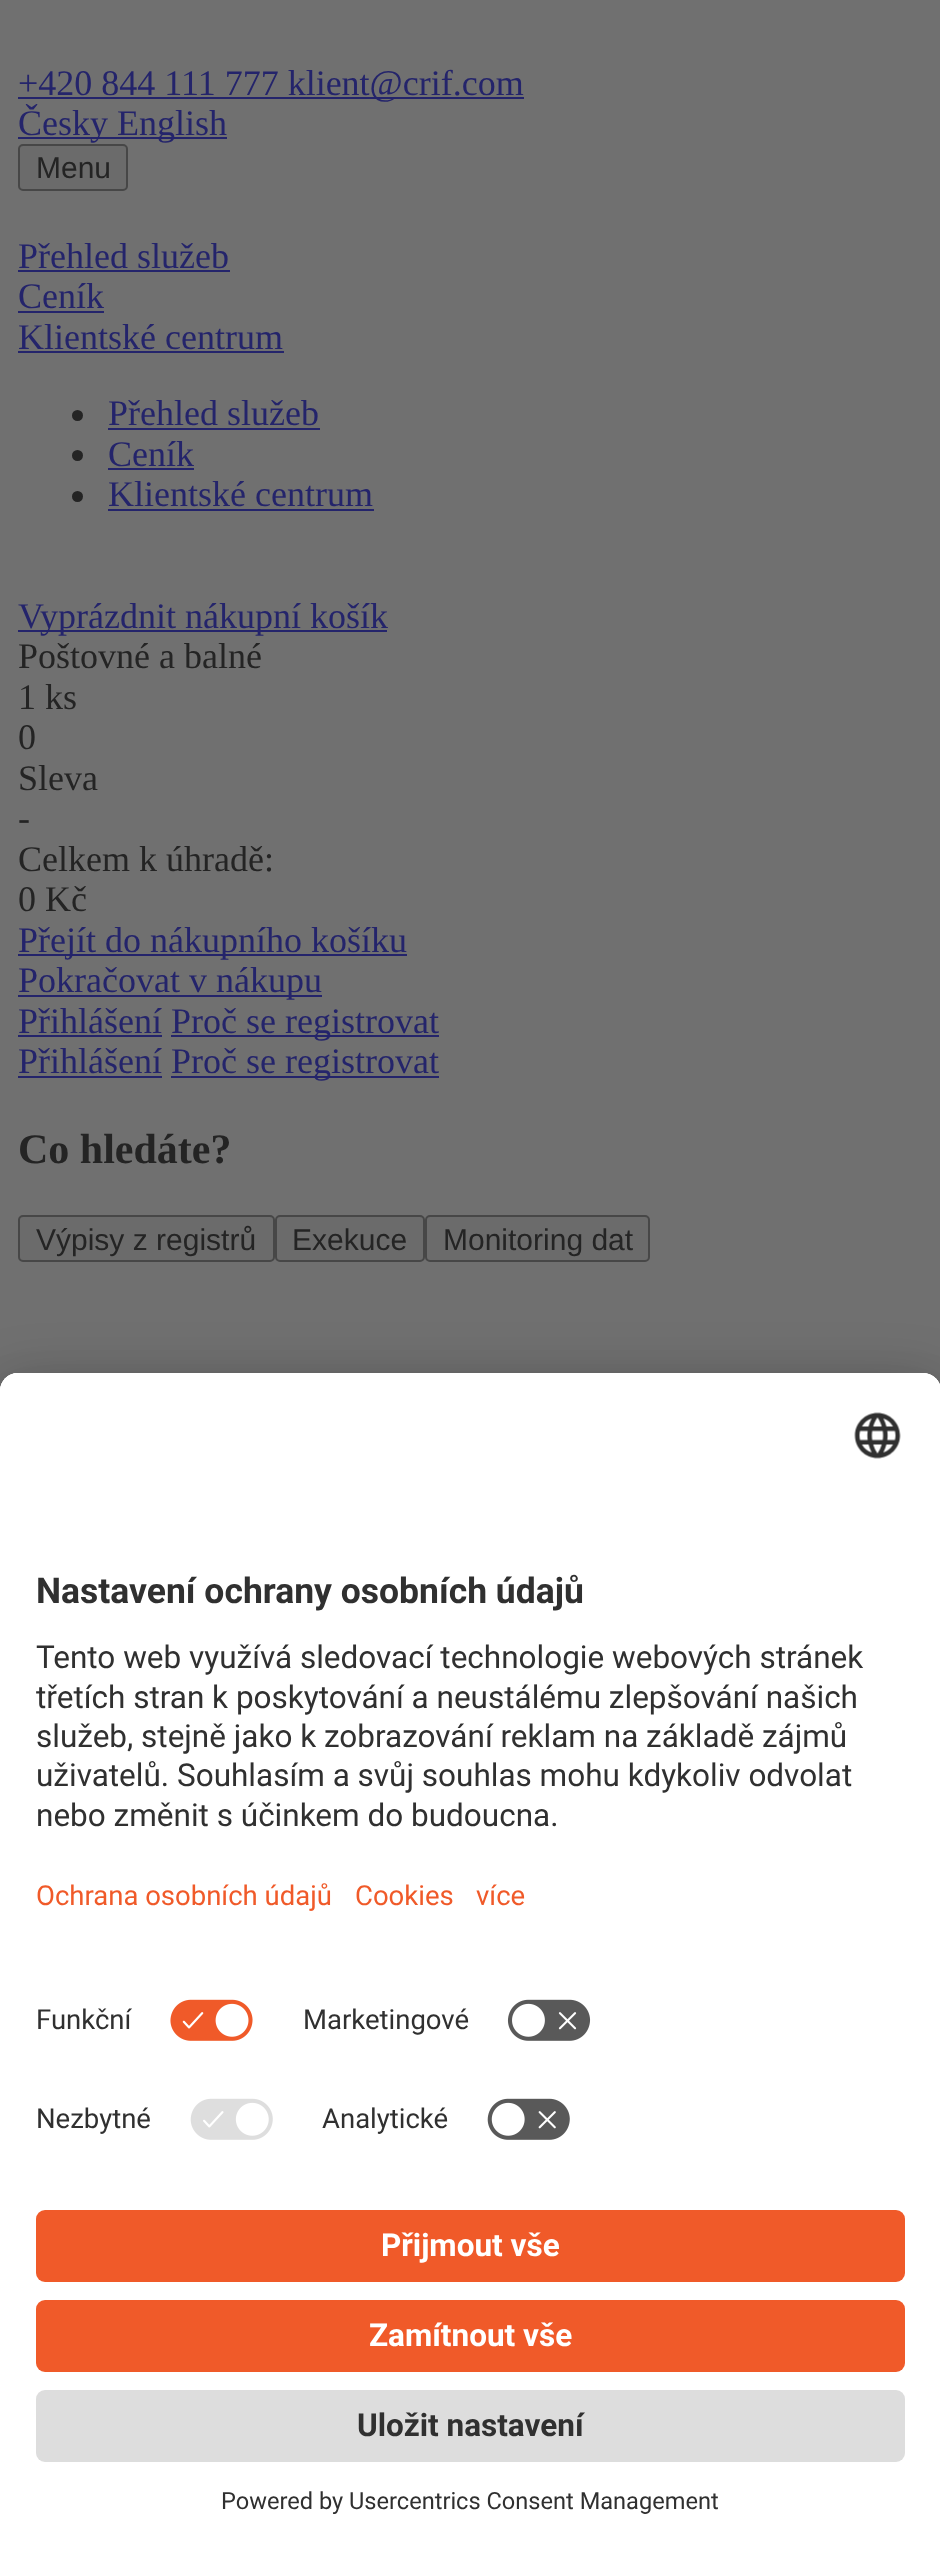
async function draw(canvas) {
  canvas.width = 940;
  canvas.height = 2550;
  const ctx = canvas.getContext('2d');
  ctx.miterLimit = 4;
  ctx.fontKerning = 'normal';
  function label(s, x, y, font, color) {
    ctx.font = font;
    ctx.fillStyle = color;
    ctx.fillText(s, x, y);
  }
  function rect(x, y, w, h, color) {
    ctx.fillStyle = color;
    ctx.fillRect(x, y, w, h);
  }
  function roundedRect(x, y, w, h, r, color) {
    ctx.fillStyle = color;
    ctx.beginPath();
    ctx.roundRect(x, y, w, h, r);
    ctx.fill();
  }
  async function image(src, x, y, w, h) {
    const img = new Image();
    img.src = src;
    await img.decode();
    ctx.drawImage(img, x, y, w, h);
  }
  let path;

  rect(0, 0, 940, 2550, '#707070');
  rect(18, 97, 506, 2, '#24246b');
  label('+420 844 111 777 klient@crif.com', 18, 95, '36px Liberation Serif', '#24246b');
  rect(18, 137, 209, 2, '#24246b');
  label('Česky English', 18, 135, '36px Liberation Serif', '#24246b');
  ctx.fillStyle = '#6b6b6b';
  ctx.beginPath();
  ctx.roundRect(19, 145, 108, 45, 4);
  ctx.fill();
  ctx.strokeStyle = '#474747';
  ctx.lineWidth = 2;
  ctx.stroke();
  label('Menu', 36, 178, '30px Liberation Sans', '#242424');
  label('Přehled služeb', 18, 268, '36px Liberation Serif', '#24246b');
  rect(18, 270, 212, 2, '#24246b');
  label('Ceník', 18, 308, '36px Liberation Serif', '#24246b');
  rect(18, 311, 86, 2, '#24246b');
  label('Klientské centrum', 18, 349, '36px Liberation Serif', '#24246b');
  rect(18, 351, 266, 2, '#24246b');
  ctx.fillStyle = '#242424';
  ctx.beginPath();
  ctx.arc(77.5, 415.5, 5.5, 0, 2 * Math.PI);
  ctx.fill();
  label('Přehled služeb', 108, 425, '36px Liberation Serif', '#24246b');
  rect(108, 428, 212, 2, '#24246b');
  ctx.fillStyle = '#242424';
  ctx.beginPath();
  ctx.arc(77.5, 455.5, 5.5, 0, 2 * Math.PI);
  ctx.fill();
  label('Ceník', 108, 466, '36px Liberation Serif', '#24246b');
  rect(108, 468, 86, 2, '#24246b');
  ctx.fillStyle = '#242424';
  ctx.beginPath();
  ctx.arc(77.5, 496.5, 5.5, 0, 2 * Math.PI);
  ctx.fill();
  label('Klientské centrum', 108, 506, '36px Liberation Serif', '#24246b');
  rect(108, 509, 266, 2, '#24246b');
  rect(18, 630, 369, 2, '#24246b');
  label('Vyprázdnit nákupní košík', 18, 628, '36px Liberation Serif', '#24246b');
  label('Poštovné a balné', 18, 668, '36px Liberation Serif', '#242424');
  label('1 ks', 18, 709, '36px Liberation Serif', '#242424');
  label('0', 18, 749, '36px Liberation Serif', '#242424');
  label('Sleva', 18, 790, '36px Liberation Serif', '#242424');
  label('-', 18, 830, '36px Liberation Serif', '#242424');
  label('Celkem k úhradě:', 18, 871, '36px Liberation Serif', '#242424');
  label('0 Kč', 18, 911, '36px Liberation Serif', '#242424');
  rect(18, 954, 389, 2, '#24246b');
  label('Přejít do nákupního košíku', 18, 952, '36px Liberation Serif', '#24246b');
  rect(18, 995, 304, 2, '#24246b');
  label('Pokračovat v nákupu', 18, 992, '36px Liberation Serif', '#24246b');
  label('Přihlášení', 18, 1033, '36px Liberation Serif', '#24246b');
  rect(18, 1035, 144, 2, '#24246b');
  rect(171, 1035, 268, 2, '#24246b');
  label('Proč se registrovat', 171, 1033, '36px Liberation Serif', '#24246b');
  label('Přihlášení', 18, 1073, '36px Liberation Serif', '#24246b');
  rect(18, 1076, 144, 2, '#24246b');
  rect(171, 1076, 268, 2, '#24246b');
  label('Proč se registrovat', 171, 1073, '36px Liberation Serif', '#24246b');
  label('Co hledáte?', 18, 1163, 'bold 42px Liberation Serif', '#242424');
  ctx.fillStyle = '#6b6b6b';
  ctx.beginPath();
  ctx.roundRect(19, 1216, 255, 45, 4);
  ctx.fill();
  ctx.stroke();
  label('Výpisy z registrů', 36, 1250, '30px Liberation Sans', '#242424');
  ctx.fillStyle = '#6b6b6b';
  ctx.beginPath();
  ctx.roundRect(276, 1216, 148, 45, 4);
  ctx.fill();
  ctx.stroke();
  label('Exekuce', 292, 1250, '30px Liberation Sans', '#242424');
  ctx.fillStyle = '#6b6b6b';
  ctx.beginPath();
  ctx.roundRect(426, 1216, 223, 45, 4);
  ctx.fill();
  ctx.stroke();
  label('Monitoring dat', 443, 1250, '30px Liberation Sans', '#242424');
  ctx.fillStyle = '#0000004d';
  ctx.filter = 'blur(31.5px)';
  ctx.beginPath();
  ctx.roundRect(0, 1418, 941, 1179, 18);
  ctx.fill();
  ctx.filter = 'none';
  ctx.fillStyle = '#00000038';
  ctx.filter = 'blur(29px)';
  ctx.beginPath();
  ctx.roundRect(0, 1384, 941, 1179, 18);
  ctx.fill();
  ctx.filter = 'none';
  ctx.fillStyle = '#fff';
  path = new Path2D('M18 1373H923C933 1373 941 1381 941 1391V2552H0V1391C0 1381 8 1373 18 1373Z');
  ctx.fill(path);
  path = new Path2D('M18 1373H923C933 1373 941 1381 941 1391V2183H0V1391C0 1381 8 1373 18 1373Z');
  ctx.fill(path);
  path = new Path2D('M18 1373H923C933 1373 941 1381 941 1391V1985H0V1391C0 1381 8 1373 18 1373Z');
  ctx.fill(path);
  await image('assets/img1.png', 854, 1412, 47, 47);
  label('Nastavení ochrany osobních údajů', 36, 1603, 'bold 35.5px Roboto', '#303030');
  label('Tento web využívá sledovací technologie webových stránek', 36, 1668, '31.5px Roboto', '#303030');
  label('třetích stran k poskytování a neustálému zlepšování našich', 36, 1708, '31.5px Roboto', '#303030');
  label('služeb, stejně jako k zobrazování reklam na základě zájmů', 36, 1747, '31.5px Roboto', '#303030');
  label('uživatelů. Souhlasím a svůj souhlas mohu kdykoliv odvolat', 36, 1786, '31.5px Roboto', '#303030');
  label('nebo změnit s účinkem do budoucna.', 36, 1826, '31.5px Roboto', '#303030');
  label('Ochrana osobních údajů', 36, 1905, '27.5px Roboto', '#f05a29');
  label('Cookies', 355, 1905, '27.5px Roboto', '#f05a29');
  label('více', 476, 1905, '27.5px Roboto', '#f05a29');
  label('Funkční', 36, 2029, '27.5px Roboto', '#303030');
  await image('assets/img2.png', 170, 1999, 83, 42);
  label('Marketingové', 303, 2029, '27.5px Roboto', '#303030');
  await image('assets/img3.png', 507, 1999, 84, 42);
  label('Nezbytné', 36, 2128, '27.5px Roboto', '#303030');
  await image('assets/img4.png', 190, 2098, 83, 42);
  label('Analytické', 322, 2128, '27.5px Roboto', '#303030');
  await image('assets/img5.png', 487, 2098, 83, 42);
  roundedRect(36, 2210, 869, 72, 9, '#f05a29');
  label('Přijmout vše', 381, 2256, 'bold 31.5px Roboto', '#fff');
  roundedRect(36, 2300, 869, 72, 9, '#f05a29');
  label('Zamítnout vše', 369, 2346, 'bold 31.5px Roboto', '#fff');
  roundedRect(36, 2390, 869, 72, 9, '#ddd');
  label('Uložit nastavení', 357, 2436, 'bold 31.5px Roboto', '#303030');
  label('Powered by Usercentrics Consent Management', 221, 2509, '23.6px Roboto', '#303030');
}

draw(document.querySelector('canvas'));
